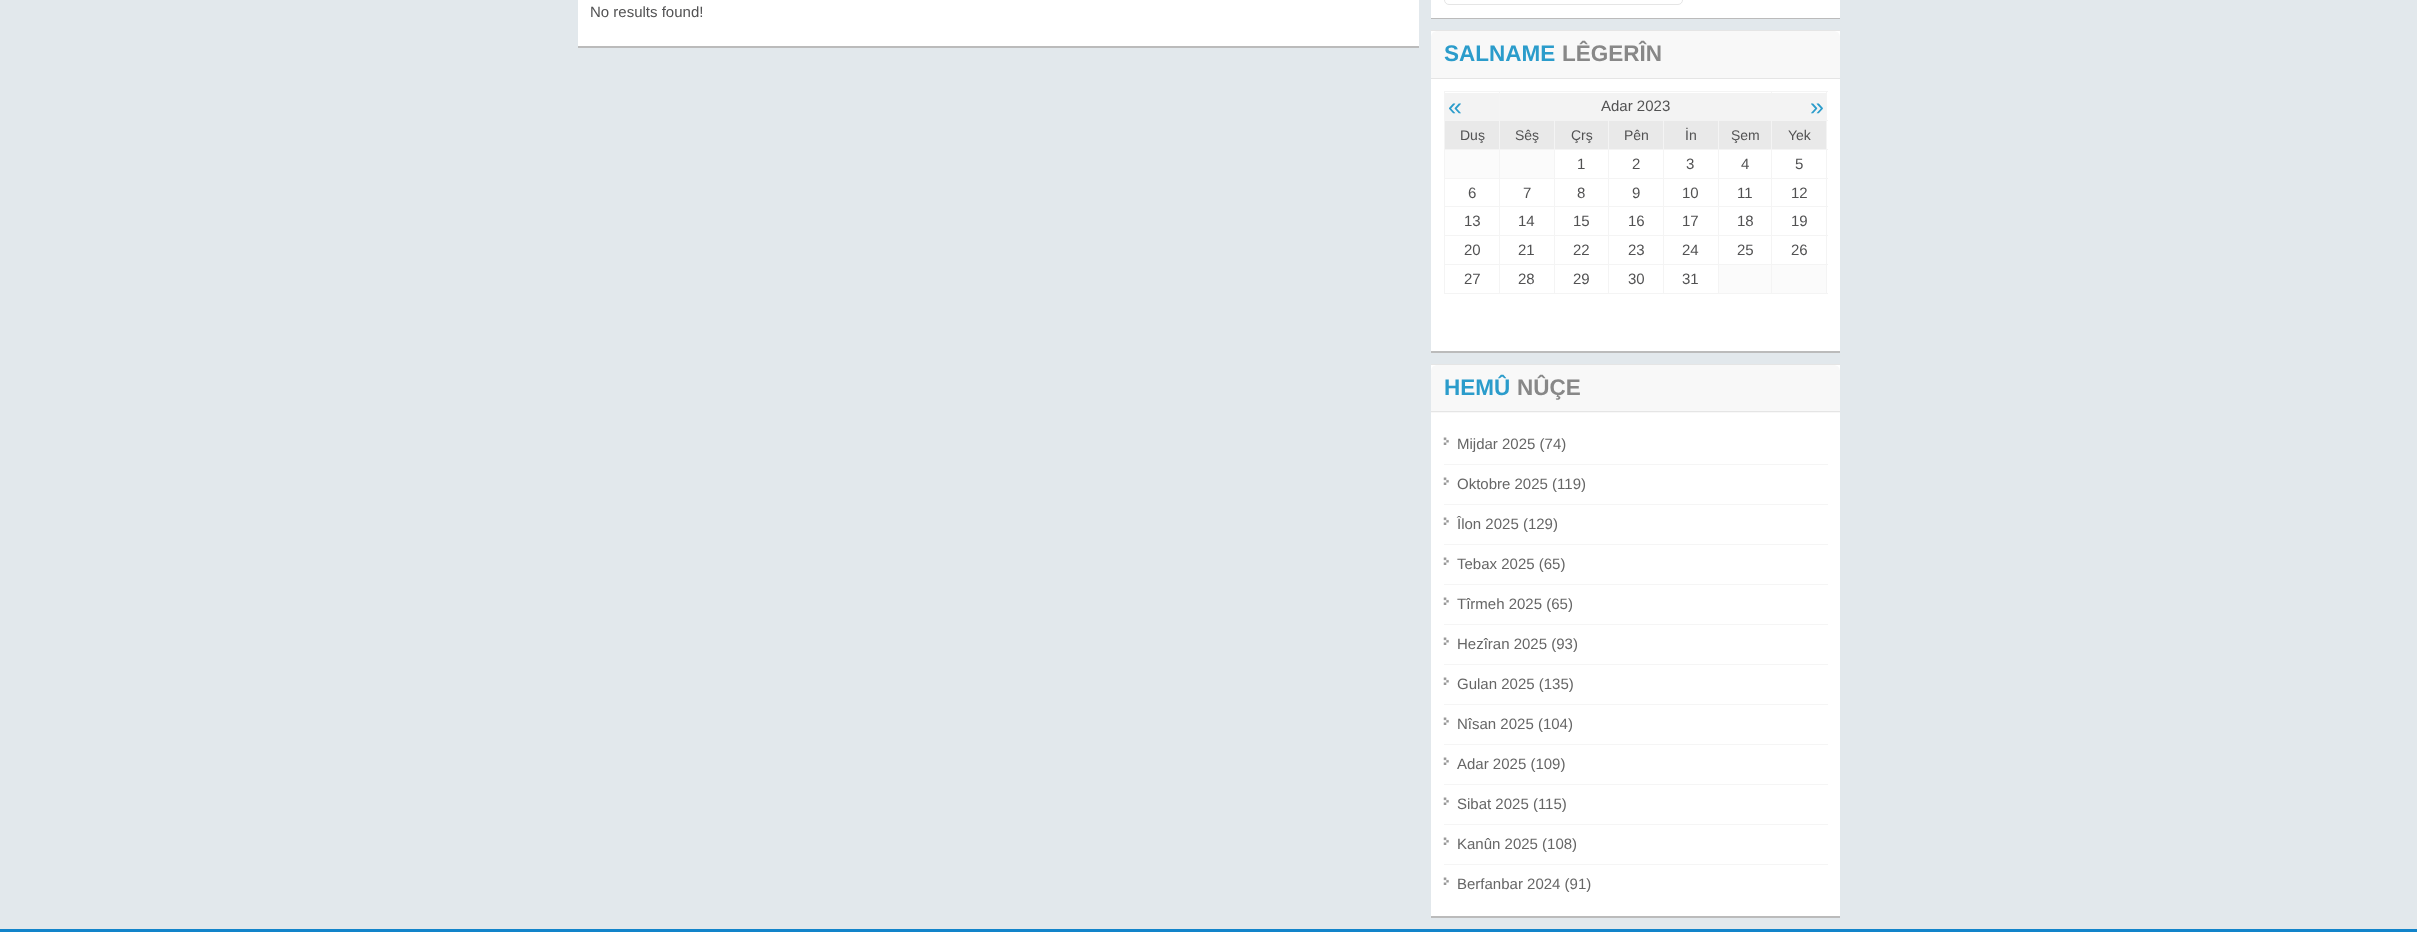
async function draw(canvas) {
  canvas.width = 2417;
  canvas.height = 932;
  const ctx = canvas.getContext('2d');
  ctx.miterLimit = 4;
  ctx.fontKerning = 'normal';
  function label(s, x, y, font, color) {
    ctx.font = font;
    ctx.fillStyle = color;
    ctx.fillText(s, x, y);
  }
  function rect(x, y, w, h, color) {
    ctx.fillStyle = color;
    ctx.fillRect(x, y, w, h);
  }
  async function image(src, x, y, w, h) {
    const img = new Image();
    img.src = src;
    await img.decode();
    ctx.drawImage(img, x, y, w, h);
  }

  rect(0, 0, 2417, 932, '#e2e8ec');
  ctx.fillStyle = '#bbb';
  ctx.filter = 'blur(0.5px)';
  ctx.beginPath();
  ctx.rect(578, -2, 841, 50);
  ctx.fill();
  ctx.filter = 'none';
  rect(578, 0, 841, 46, '#fff');
  label('No results found!', 590, 17, '15px Liberation Sans', '#525253');
  ctx.fillStyle = '#bbb';
  ctx.filter = 'blur(0.5px)';
  ctx.beginPath();
  ctx.rect(1431, -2, 409, 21);
  ctx.fill();
  ctx.filter = 'none';
  rect(1431, 0, 409, 18, '#fff');
  ctx.beginPath();
  ctx.roundRect(1444.5, -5.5, 238, 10, 4.5);
  ctx.strokeStyle = '#e5e5e5';
  ctx.stroke();
  ctx.fillStyle = '#bbb';
  ctx.filter = 'blur(0.5px)';
  ctx.beginPath();
  ctx.rect(1431, 31, 409, 322);
  ctx.fill();
  ctx.filter = 'none';
  rect(1431, 31, 409, 320, '#fff');
  rect(1431, 30, 409, 1, '#e5e5e5');
  ctx.fillStyle = '#f8f8f8';
  ctx.beginPath();
  ctx.roundRect(1431, 31, 409, 48, [6, 6, 0, 0]);
  ctx.fill();
  rect(1431, 78, 409, 1, '#e5e5e5');
  label('SALNAME', 1444, 61, 'bold 22.5px Liberation Sans', '#2b9ccb');
  label('LÊGERÎN', 1562, 61, 'bold 22.5px Liberation Sans', '#888');
  rect(1445, 93, 54, 27, '#f3f3f3');
  rect(1771, 91, 57, 1, '#f4f4f4');
  rect(1771, 91, 1, 2, '#f4f4f4');
  rect(1499, 91, 274, 1, '#f4f4f4');
  rect(1771, 149, 57, 1, '#f4f4f4');
  rect(1771, 178, 57, 1, '#f4f4f4');
  rect(1771, 206, 57, 1, '#f4f4f4');
  rect(1771, 235, 57, 1, '#f4f4f4');
  rect(1771, 264, 57, 1, '#f4f4f4');
  rect(1719, 265, 107, 28, '#fbfbfb');
  rect(1826, 264, 1, 30, '#f4f4f4');
  rect(1771, 293, 57, 1, '#f4f4f4');
  rect(1771, 264, 1, 30, '#f4f4f4');
  rect(1718, 264, 55, 1, '#f4f4f4');
  rect(1771, 235, 1, 30, '#f4f4f4');
  rect(1718, 235, 55, 1, '#f4f4f4');
  rect(1771, 206, 1, 30, '#f4f4f4');
  rect(1718, 206, 55, 1, '#f4f4f4');
  rect(1771, 178, 1, 30, '#f4f4f4');
  rect(1718, 178, 55, 1, '#f4f4f4');
  rect(1771, 149, 1, 30, '#f4f4f4');
  rect(1718, 149, 55, 1, '#f4f4f4');
  rect(1718, 293, 55, 1, '#f4f4f4');
  rect(1718, 264, 1, 30, '#f4f4f4');
  rect(1663, 264, 56, 1, '#f4f4f4');
  rect(1718, 235, 1, 30, '#f4f4f4');
  rect(1663, 235, 56, 1, '#f4f4f4');
  rect(1718, 206, 1, 30, '#f4f4f4');
  rect(1663, 206, 56, 1, '#f4f4f4');
  rect(1718, 178, 1, 30, '#f4f4f4');
  rect(1663, 178, 56, 1, '#f4f4f4');
  rect(1718, 149, 1, 30, '#f4f4f4');
  rect(1663, 149, 56, 1, '#f4f4f4');
  rect(1663, 293, 56, 1, '#f4f4f4');
  rect(1663, 264, 1, 30, '#f4f4f4');
  rect(1608, 264, 56, 1, '#f4f4f4');
  rect(1663, 235, 1, 30, '#f4f4f4');
  rect(1608, 235, 56, 1, '#f4f4f4');
  rect(1663, 206, 1, 30, '#f4f4f4');
  rect(1608, 206, 56, 1, '#f4f4f4');
  rect(1663, 178, 1, 30, '#f4f4f4');
  rect(1608, 178, 56, 1, '#f4f4f4');
  rect(1663, 149, 1, 30, '#f4f4f4');
  rect(1608, 149, 56, 1, '#f4f4f4');
  rect(1608, 293, 56, 1, '#f4f4f4');
  rect(1608, 264, 1, 30, '#f4f4f4');
  rect(1554, 264, 55, 1, '#f4f4f4');
  rect(1608, 235, 1, 30, '#f4f4f4');
  rect(1554, 235, 55, 1, '#f4f4f4');
  rect(1608, 206, 1, 30, '#f4f4f4');
  rect(1554, 206, 55, 1, '#f4f4f4');
  rect(1608, 178, 1, 30, '#f4f4f4');
  rect(1554, 178, 55, 1, '#f4f4f4');
  rect(1608, 149, 1, 30, '#f4f4f4');
  rect(1554, 149, 55, 1, '#f4f4f4');
  rect(1554, 293, 55, 1, '#f4f4f4');
  rect(1554, 264, 1, 30, '#f4f4f4');
  rect(1499, 264, 56, 1, '#f4f4f4');
  rect(1554, 235, 1, 30, '#f4f4f4');
  rect(1499, 235, 56, 1, '#f4f4f4');
  rect(1554, 206, 1, 30, '#f4f4f4');
  rect(1499, 206, 56, 1, '#f4f4f4');
  rect(1554, 178, 1, 30, '#f4f4f4');
  rect(1499, 178, 56, 1, '#f4f4f4');
  rect(1554, 149, 1, 30, '#f4f4f4');
  rect(1499, 149, 56, 1, '#f4f4f4');
  rect(1499, 293, 56, 1, '#f4f4f4');
  rect(1499, 264, 1, 30, '#f4f4f4');
  rect(1444, 264, 56, 1, '#f4f4f4');
  rect(1499, 235, 1, 30, '#f4f4f4');
  rect(1444, 235, 56, 1, '#f4f4f4');
  rect(1499, 206, 1, 30, '#f4f4f4');
  rect(1444, 206, 56, 1, '#f4f4f4');
  rect(1499, 178, 1, 30, '#f4f4f4');
  rect(1444, 178, 56, 1, '#f4f4f4');
  rect(1499, 149, 1, 30, '#f4f4f4');
  rect(1444, 149, 56, 1, '#f4f4f4');
  rect(1499, 120, 1, 30, '#f4f4f4');
  rect(1444, 120, 56, 1, '#f4f4f4');
  rect(1499, 91, 1, 30, '#f4f4f4');
  rect(1444, 91, 56, 1, '#f4f4f4');
  rect(1444, 293, 56, 1, '#f4f4f4');
  rect(1444, 264, 1, 30, '#f4f4f4');
  rect(1444, 235, 1, 30, '#f4f4f4');
  rect(1444, 206, 1, 30, '#f4f4f4');
  rect(1444, 178, 1, 30, '#f4f4f4');
  rect(1444, 149, 1, 30, '#f4f4f4');
  rect(1444, 120, 1, 30, '#f4f4f4');
  rect(1444, 91, 1, 30, '#f4f4f4');
  label('«', 1448, 115, '25px Liberation Sans', '#2b9ccb');
  rect(1500, 93, 273, 28, '#f3f3f3');
  label('Adar 2023', 1601, 111, '15px Liberation Sans', '#525253');
  rect(1773, 93, 53, 27, '#f3f3f3');
  rect(1771, 120, 57, 1, '#f4f4f4');
  rect(1826, 235, 1, 30, '#f4f4f4');
  rect(1826, 206, 1, 30, '#f4f4f4');
  rect(1826, 178, 1, 30, '#f4f4f4');
  rect(1826, 149, 1, 30, '#f4f4f4');
  rect(1826, 120, 1, 30, '#f4f4f4');
  rect(1826, 91, 1, 30, '#f4f4f4');
  label('»', 1810, 115, '25px Liberation Sans', '#2b9ccb');
  rect(1445, 121, 54, 28, '#e9e9e9');
  label('Duş', 1460, 140, '14px Liberation Sans', '#525253');
  rect(1500, 121, 54, 28, '#e9e9e9');
  label('Sêş', 1515, 140, '14px Liberation Sans', '#525253');
  rect(1555, 121, 53, 28, '#e9e9e9');
  rect(1554, 120, 1, 30, '#f4f4f4');
  label('Çrş', 1571, 140, '14px Liberation Sans', '#525253');
  rect(1609, 121, 54, 28, '#e9e9e9');
  rect(1608, 120, 1, 30, '#f4f4f4');
  label('Pên', 1624, 140, '14px Liberation Sans', '#525253');
  rect(1664, 121, 54, 28, '#e9e9e9');
  rect(1663, 120, 1, 30, '#f4f4f4');
  label('İn', 1685, 140, '14px Liberation Sans', '#525253');
  rect(1719, 121, 107, 28, '#e9e9e9');
  rect(1718, 120, 1, 30, '#f4f4f4');
  label('Şem', 1731, 140, '14px Liberation Sans', '#525253');
  rect(1771, 120, 1, 30, '#f4f4f4');
  label('Yek', 1788, 140, '14px Liberation Sans', '#525253');
  rect(1445, 150, 54, 28, '#fbfbfb');
  rect(1500, 150, 54, 28, '#fbfbfb');
  label('1', 1577, 169, '15px Liberation Sans', '#525253');
  label('2', 1632, 169, '15px Liberation Sans', '#525253');
  label('3', 1686, 169, '15px Liberation Sans', '#525253');
  label('4', 1741, 169, '15px Liberation Sans', '#525253');
  label('5', 1795, 169, '15px Liberation Sans', '#525253');
  label('6', 1468, 198, '15px Liberation Sans', '#525253');
  label('7', 1523, 198, '15px Liberation Sans', '#525253');
  label('8', 1577, 198, '15px Liberation Sans', '#525253');
  label('9', 1632, 198, '15px Liberation Sans', '#525253');
  label('10', 1682, 198, '15px Liberation Sans', '#525253');
  label('11', 1737, 198, '15px Liberation Sans', '#525253');
  label('12', 1791, 198, '15px Liberation Sans', '#525253');
  label('13', 1464, 226, '15px Liberation Sans', '#525253');
  label('14', 1518, 226, '15px Liberation Sans', '#525253');
  label('15', 1573, 226, '15px Liberation Sans', '#525253');
  label('16', 1628, 226, '15px Liberation Sans', '#525253');
  label('17', 1682, 226, '15px Liberation Sans', '#525253');
  label('18', 1737, 226, '15px Liberation Sans', '#525253');
  label('19', 1791, 226, '15px Liberation Sans', '#525253');
  label('20', 1464, 255, '15px Liberation Sans', '#525253');
  label('21', 1518, 255, '15px Liberation Sans', '#525253');
  label('22', 1573, 255, '15px Liberation Sans', '#525253');
  label('23', 1628, 255, '15px Liberation Sans', '#525253');
  label('24', 1682, 255, '15px Liberation Sans', '#525253');
  label('25', 1737, 255, '15px Liberation Sans', '#525253');
  label('26', 1791, 255, '15px Liberation Sans', '#525253');
  label('27', 1464, 284, '15px Liberation Sans', '#525253');
  label('28', 1518, 284, '15px Liberation Sans', '#525253');
  label('29', 1573, 284, '15px Liberation Sans', '#525253');
  label('30', 1628, 284, '15px Liberation Sans', '#525253');
  label('31', 1682, 284, '15px Liberation Sans', '#525253');
  ctx.fillStyle = '#bbb';
  ctx.filter = 'blur(0.5px)';
  ctx.beginPath();
  ctx.rect(1431, 365, 409, 553);
  ctx.fill();
  ctx.filter = 'none';
  rect(1431, 365, 409, 551, '#fff');
  rect(1431, 364, 409, 1, '#e5e5e5');
  ctx.fillStyle = '#f8f8f8';
  ctx.beginPath();
  ctx.roundRect(1431, 365, 409, 48, [6, 6, 0, 0]);
  ctx.fill();
  rect(1431, 411, 409, 1, '#e5e5e5');
  label('HEMÛ', 1444, 395, 'bold 22.5px Liberation Sans', '#2b9ccb');
  label('NÛÇE', 1517, 395, 'bold 22.5px Liberation Sans', '#888');
  await image('assets/img1.png', 1443, 437, 6, 8);
  label('Mijdar 2025 (74)', 1457, 449, '15px Liberation Sans', '#666');
  await image('assets/img1.png', 1443, 477, 6, 8);
  rect(1444, 464, 384, 1, '#f5f5f5');
  label('Oktobre 2025 (119)', 1457, 489, '15px Liberation Sans', '#666');
  await image('assets/img1.png', 1443, 517, 6, 8);
  rect(1444, 504, 384, 1, '#f5f5f5');
  label('Îlon 2025 (129)', 1457, 529, '15px Liberation Sans', '#666');
  await image('assets/img1.png', 1443, 557, 6, 8);
  rect(1444, 544, 384, 1, '#f5f5f5');
  label('Tebax 2025 (65)', 1457, 569, '15px Liberation Sans', '#666');
  await image('assets/img1.png', 1443, 597, 6, 8);
  rect(1444, 584, 384, 1, '#f5f5f5');
  label('Tîrmeh 2025 (65)', 1457, 609, '15px Liberation Sans', '#666');
  await image('assets/img1.png', 1443, 637, 6, 8);
  rect(1444, 624, 384, 1, '#f5f5f5');
  label('Hezîran 2025 (93)', 1457, 649, '15px Liberation Sans', '#666');
  await image('assets/img1.png', 1443, 677, 6, 8);
  rect(1444, 664, 384, 1, '#f5f5f5');
  label('Gulan 2025 (135)', 1457, 689, '15px Liberation Sans', '#666');
  await image('assets/img1.png', 1443, 717, 6, 8);
  rect(1444, 704, 384, 1, '#f5f5f5');
  label('Nîsan 2025 (104)', 1457, 729, '15px Liberation Sans', '#666');
  await image('assets/img1.png', 1443, 757, 6, 8);
  rect(1444, 744, 384, 1, '#f5f5f5');
  label('Adar 2025 (109)', 1457, 769, '15px Liberation Sans', '#666');
  await image('assets/img1.png', 1443, 797, 6, 8);
  rect(1444, 784, 384, 1, '#f5f5f5');
  label('Sibat 2025 (115)', 1457, 809, '15px Liberation Sans', '#666');
  await image('assets/img1.png', 1443, 837, 6, 8);
  rect(1444, 824, 384, 1, '#f5f5f5');
  label('Kanûn 2025 (108)', 1457, 849, '15px Liberation Sans', '#666');
  await image('assets/img1.png', 1443, 877, 6, 8);
  rect(1444, 864, 384, 1, '#f5f5f5');
  label('Berfanbar 2024 (91)', 1457, 889, '15px Liberation Sans', '#666');
  rect(0, 929, 2417, 3, '#1284ca');
}

draw(document.querySelector('canvas'));
